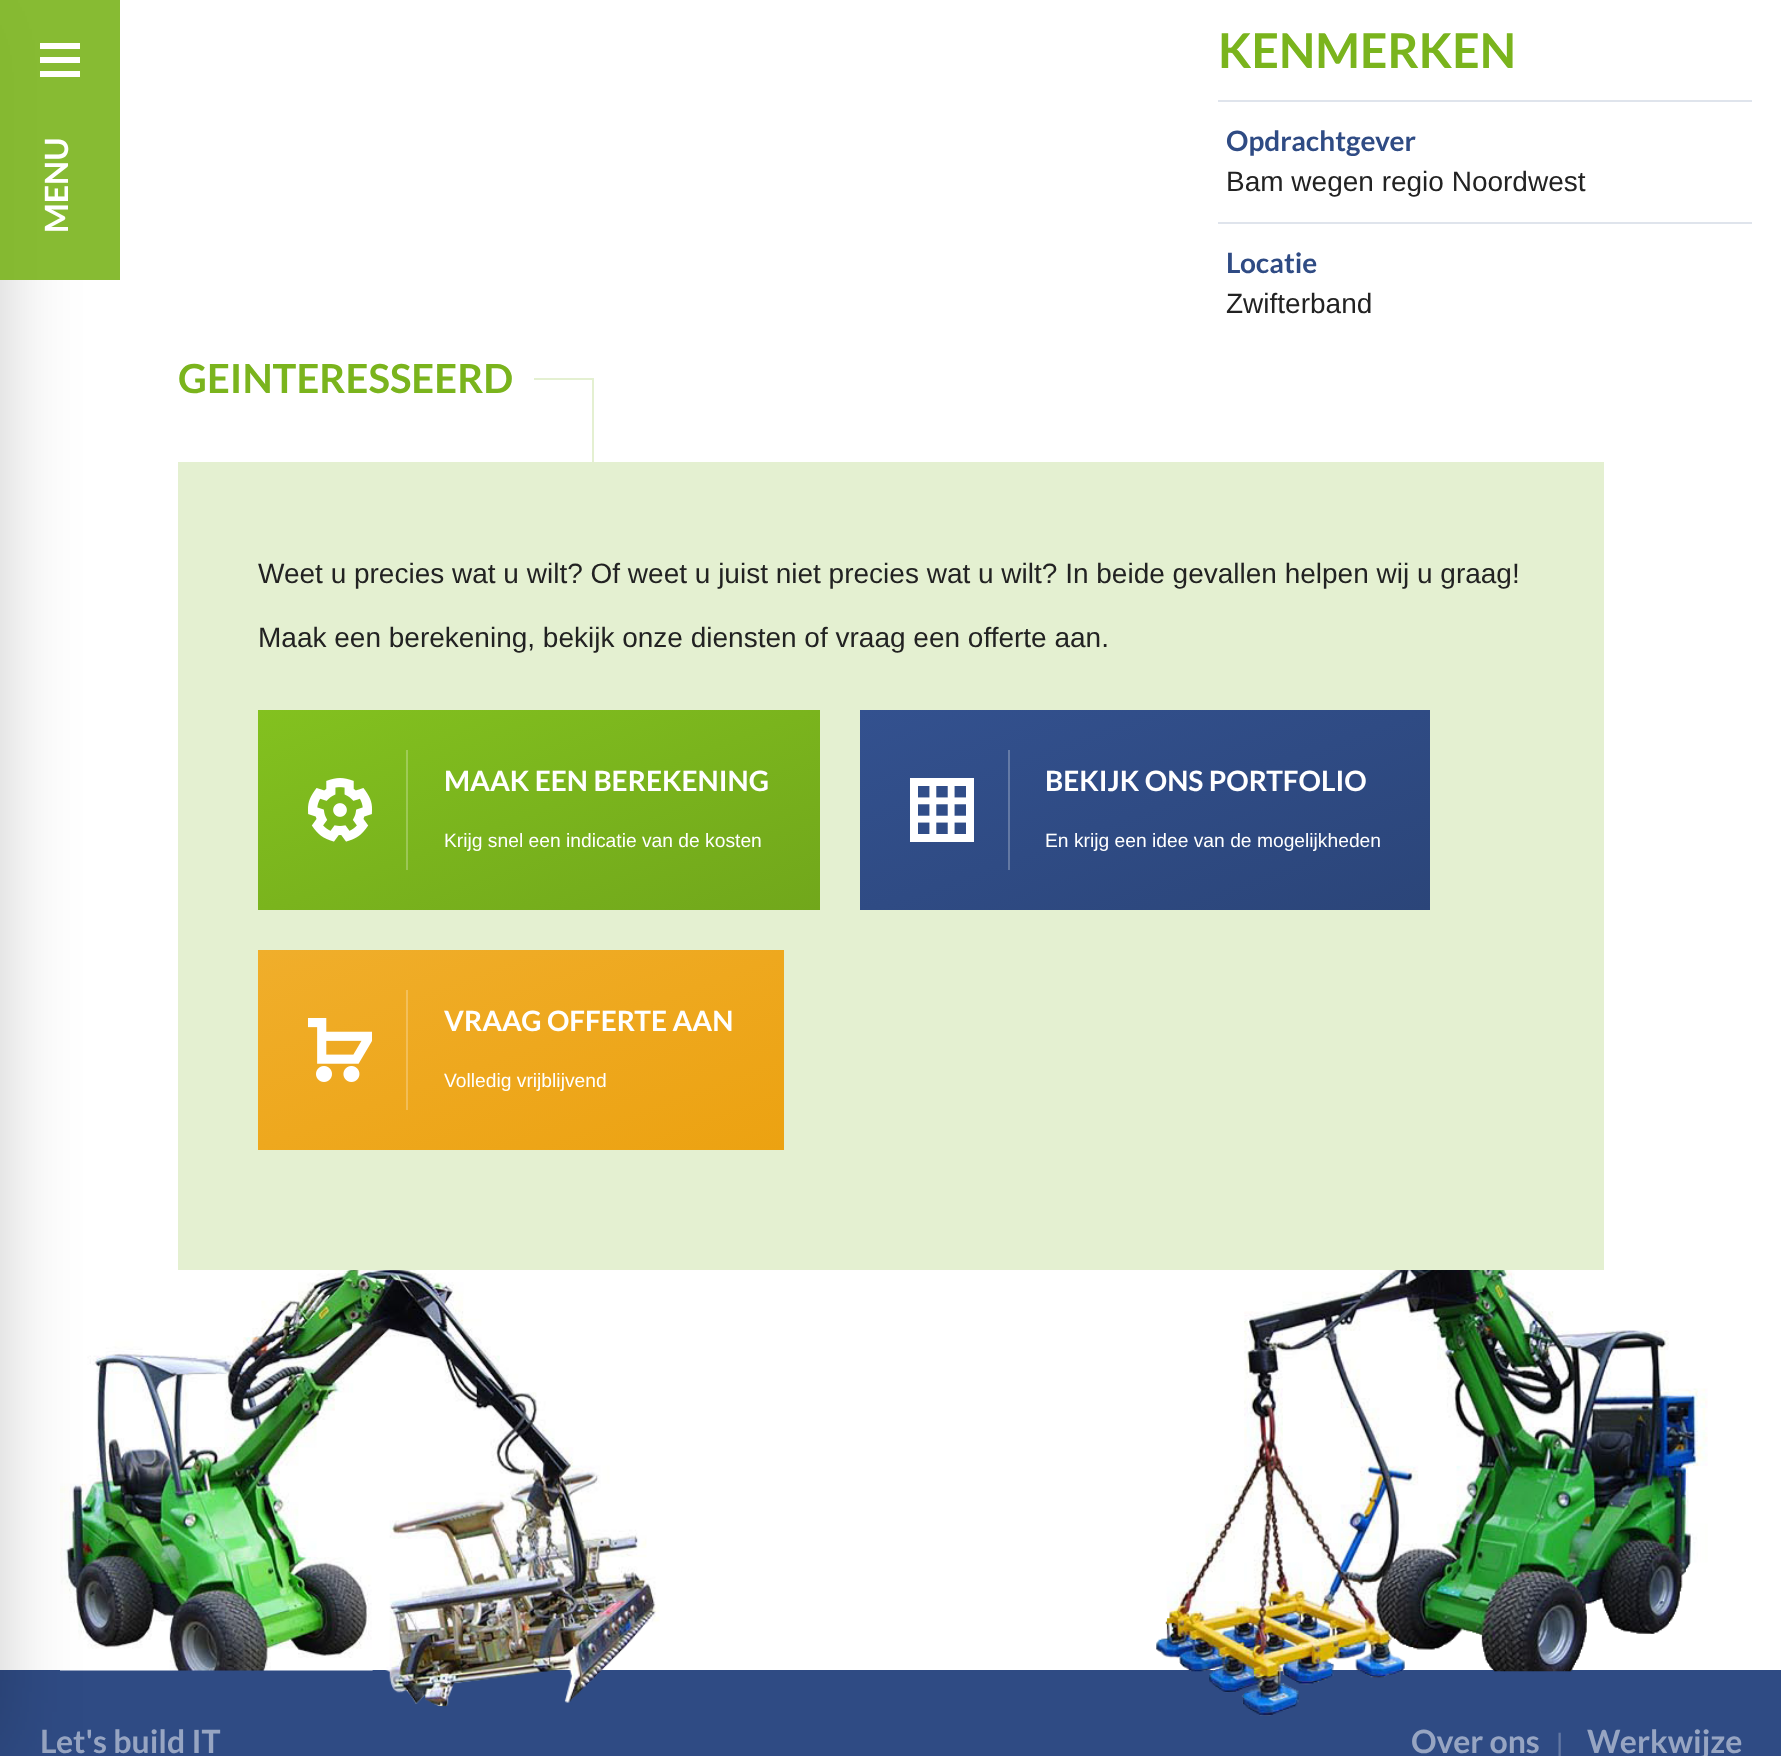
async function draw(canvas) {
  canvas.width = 1781;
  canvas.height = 1756;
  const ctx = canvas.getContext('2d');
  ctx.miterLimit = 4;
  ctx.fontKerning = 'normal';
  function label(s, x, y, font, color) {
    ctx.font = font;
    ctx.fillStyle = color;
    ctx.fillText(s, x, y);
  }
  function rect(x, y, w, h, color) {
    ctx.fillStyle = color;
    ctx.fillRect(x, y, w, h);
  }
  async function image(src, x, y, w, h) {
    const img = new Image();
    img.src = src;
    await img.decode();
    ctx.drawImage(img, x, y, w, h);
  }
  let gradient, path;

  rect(0, 0, 1781, 1756, '#fff');
  label('KENMERKEN', 1218, 68, 'bold 48px Lato', '#7ab41d');
  rect(1218, 100, 534, 2, '#dfe4ec');
  label('Opdrachtgever', 1226, 151, 'bold 28px Lato', '#2f4b84');
  label('Bam wegen regio Noordwest', 1226, 191, '28px Liberation Sans', '#222');
  rect(1218, 222, 534, 2, '#dfe4ec');
  label('Locatie', 1226, 273, 'bold 28px Lato', '#2f4b84');
  label('Zwifterband', 1226, 313, '28px Liberation Sans', '#222');
  label('GEINTERESSEERD', 178, 393, 'bold 40px Lato', '#7ab41d');
  rect(534, 378, 60, 2, '#e4f0d1');
  rect(592, 378, 2, 84, '#e4f0d1');
  rect(0, 1670, 1781, 86, '#2f4b84');
  await image('assets/img4.png', 60, 1264, 600, 443);
  await image('assets/img5.png', 1156, 1234, 552, 482);
  rect(178, 462, 1426, 808, '#e4f0d1');
  label('Weet u precies wat u wilt? Of weet u juist niet precies wat u wilt? In beide gevallen helpen wij u graag!', 258, 583, '28px Liberation Sans', '#222');
  label('Maak een berekening, bekijk onze diensten of vraag een offerte aan.', 258, 647, '28px Liberation Sans', '#222');
  gradient = ctx.createLinearGradient(474, 631, 604, 989);
  gradient.addColorStop(0, '#83c11f');
  gradient.addColorStop(1, '#71a71b');
  ctx.fillStyle = gradient;
  ctx.fillRect(258, 710, 562, 200);
  gradient = ctx.createLinearGradient(474, 631, 604, 989);
  gradient.addColorStop(0, '#a2d157');
  gradient.addColorStop(1, '#95bd54');
  ctx.fillStyle = gradient;
  ctx.fillRect(406, 750, 2, 120);
  await image('assets/img1.png', 308, 778, 64, 64);
  label('MAAK EEN BEREKENING', 444, 791, 'bold 28px Lato', '#fff');
  label('Krijg snel een indicatie van de kosten', 444, 847, '19.25px Liberation Sans', '#fff');
  gradient = ctx.createLinearGradient(1080, 630, 1210, 990);
  gradient.addColorStop(0, '#33518f');
  gradient.addColorStop(1, '#2b4579');
  ctx.fillStyle = gradient;
  ctx.fillRect(860, 710, 570, 200);
  gradient = ctx.createLinearGradient(1080, 630, 1210, 990);
  gradient.addColorStop(0, '#667dab');
  gradient.addColorStop(1, '#60749b');
  ctx.fillStyle = gradient;
  ctx.fillRect(1008, 750, 2, 120);
  await image('assets/img2.png', 910, 778, 64, 64);
  label('BEKIJK ONS PORTFOLIO', 1045, 791, 'bold 28px Lato', '#fff');
  label('En krijg een idee van de mogelijkheden', 1045, 847, '19.25px Liberation Sans', '#fff');
  gradient = ctx.createLinearGradient(458, 877, 584, 1223);
  gradient.addColorStop(0, '#f0ae2b');
  gradient.addColorStop(1, '#eca211');
  ctx.fillStyle = gradient;
  ctx.fillRect(258, 950, 526, 200);
  gradient = ctx.createLinearGradient(458, 877, 584, 1223);
  gradient.addColorStop(0, '#f4c260');
  gradient.addColorStop(1, '#f1b94d');
  ctx.fillStyle = gradient;
  ctx.fillRect(406, 990, 2, 120);
  await image('assets/img3.png', 308, 1018, 64, 64);
  label('VRAAG OFFERTE AAN', 444, 1031, 'bold 28px Lato', '#fff');
  label('Volledig vrijblijvend', 444, 1087, '19.25px Liberation Sans', '#fff');
  label('Let\'s build IT', 40, 1753, 'bold 32px Lato', '#97a5c2');
  label('Over ons', 1411, 1753, 'bold 32px Lato', '#97a5c2');
  label('|', 1556, 1753, '28px Liberation Sans', '#6378a3');
  label('Werkwijze', 1587, 1753, 'bold 32px Lato', '#97a5c2');
  ctx.fillStyle = '#00000033';
  ctx.filter = 'blur(40px)';
  ctx.beginPath();
  ctx.rect(-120, 0, 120, 1756);
  ctx.fill();
  ctx.filter = 'none';
  rect(0, 0, 120, 280, '#7ab41de6');
  ctx.fillStyle = '#fff';
  path = new Path2D('M80 71V77H40V71ZM80 57V63H40V57ZM80 43V49H40V43Z');
  ctx.fill(path);
  ctx.save();
  ctx.translate(68, 233);
  ctx.rotate(-90 * Math.PI / 180);
  ctx.fillText('MENU', 0, 0);
  ctx.restore();
}

draw(document.querySelector('canvas'));
